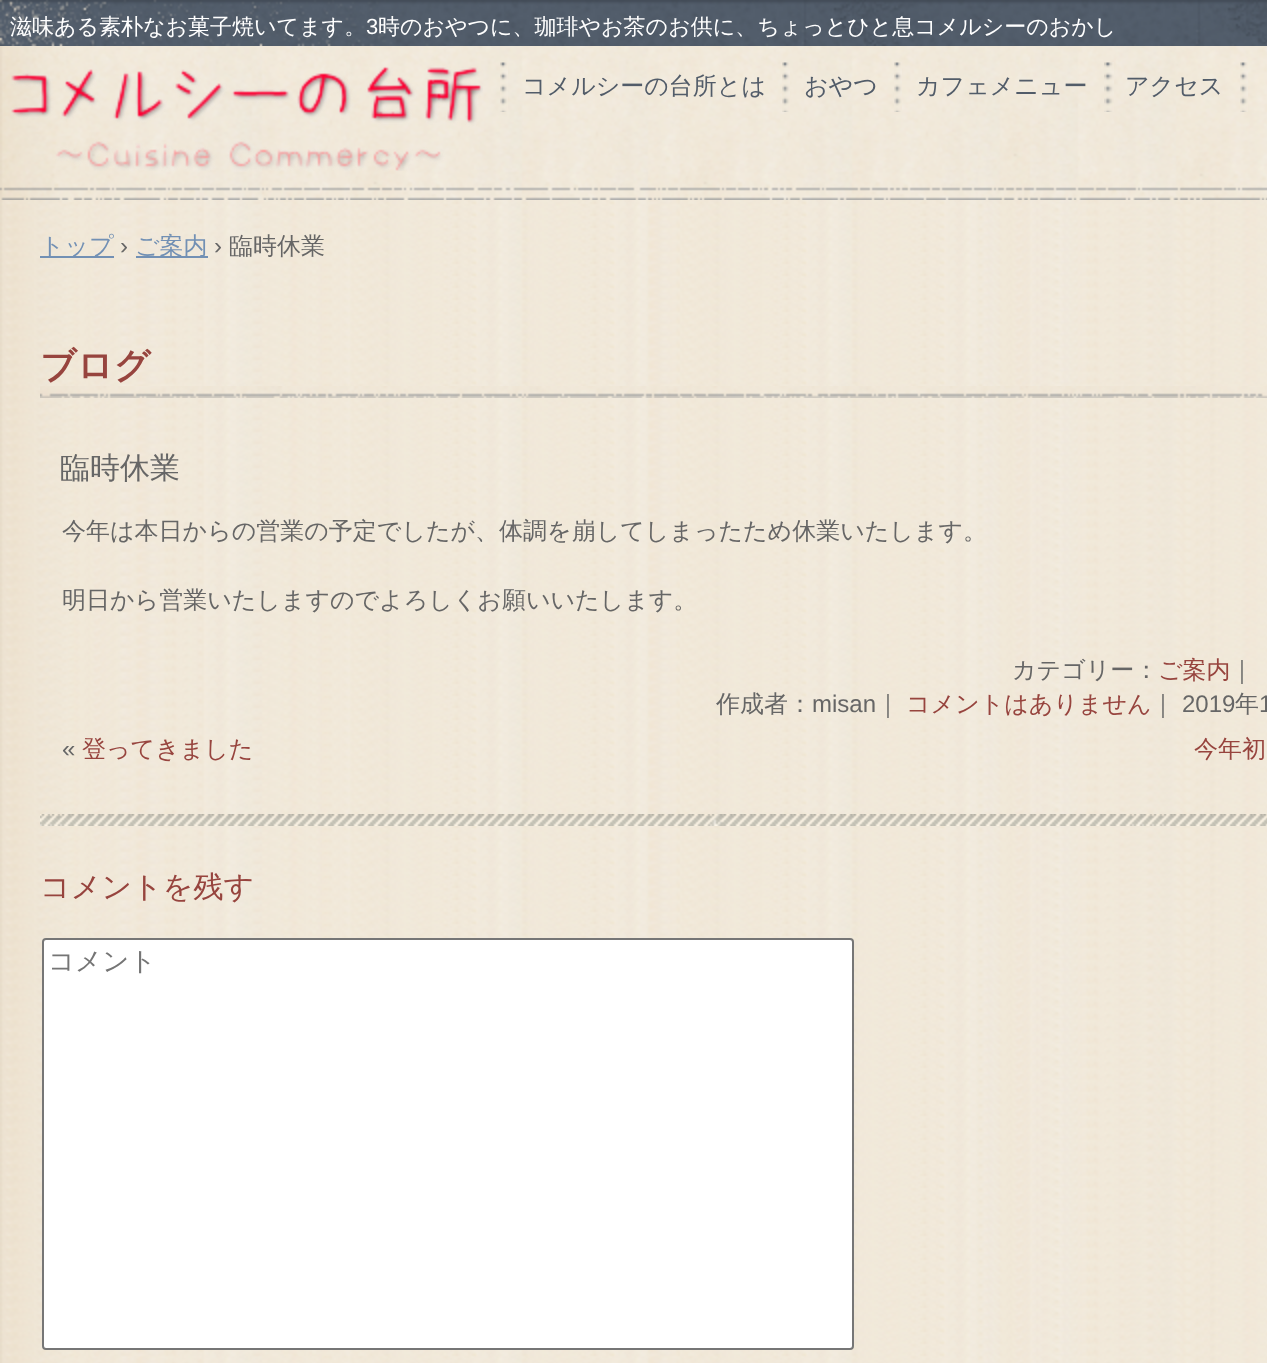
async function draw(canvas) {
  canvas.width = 1267;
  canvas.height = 1363;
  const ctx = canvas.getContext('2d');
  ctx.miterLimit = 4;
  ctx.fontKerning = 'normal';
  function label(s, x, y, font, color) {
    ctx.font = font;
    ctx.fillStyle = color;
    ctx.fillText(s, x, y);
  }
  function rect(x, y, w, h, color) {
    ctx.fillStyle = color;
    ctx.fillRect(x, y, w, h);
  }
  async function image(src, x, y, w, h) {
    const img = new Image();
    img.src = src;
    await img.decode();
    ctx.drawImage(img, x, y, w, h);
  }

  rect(0, 0, 1267, 1363, '#fff');
  await image('assets/img1.png', 0, 200, 1267, 1163);
  await image('assets/img2.png', 0, 46, 1267, 154);
  await image('assets/img3.png', 0, 0, 1267, 46);
  label('滋味ある素朴なお菓子焼いてます。', 10, 34, '500 22px WenQuanYi Zen Hei', '#fff');
  label('3', 366, 34, '22px Liberation Sans', '#fff');
  label('時のおやつに、珈琲やお茶のお供に、ちょっとひと息コメルシーのおかし', 378, 34, '500 22px WenQuanYi Zen Hei', '#fff');
  await image('assets/img4.png', 11, 66, 472, 105);
  await image('assets/img5.png', 500, 62, 8, 50);
  label('コメルシーの台所とは', 522, 94, '500 24px WenQuanYi Zen Hei', '#525c69');
  await image('assets/img5.png', 782, 62, 8, 50);
  label('おやつ', 804, 94, '500 24px WenQuanYi Zen Hei', '#525c69');
  await image('assets/img5.png', 894, 62, 8, 50);
  label('カフェメニュー', 916, 94, '500 24px WenQuanYi Zen Hei', '#525c69');
  await image('assets/img6.png', 1104, 62, 10, 50);
  label('アクセス', 1125, 94, '500 24px WenQuanYi Zen Hei', '#525c69');
  await image('assets/img5.png', 1240, 62, 8, 50);
  rect(40, 256, 74, 2, '#7290b4');
  label('トップ', 40, 254, '500 24px WenQuanYi Zen Hei', '#7290b4');
  label('›', 120, 254, '24px Liberation Sans', '#666');
  rect(136, 256, 72, 2, '#7290b4');
  label('ご案内', 135, 254, '500 24px WenQuanYi Zen Hei', '#7290b4');
  label('›', 214, 254, '24px Liberation Sans', '#666');
  label('臨時休業', 229, 254, '500 24px WenQuanYi Zen Hei', '#666');
  await image('assets/img7.png', 40, 386, 1227, 12);
  label('ブログ', 40, 378, 'bold 36px WenQuanYi Zen Hei', '#97443e');
  await image('assets/img8.png', 40, 814, 1227, 12);
  label('臨時休業', 60, 478, '500 30px WenQuanYi Zen Hei', '#666');
  label('今年は本日からの営業の予定でしたが、体調を崩してしまったため休業いたします。', 62, 539, '500 24px WenQuanYi Zen Hei', '#666');
  label('明日から営業いたしますのでよろしくお願いいたします。', 62, 608, '500 24px WenQuanYi Zen Hei', '#666');
  label('カテゴリー：', 1012, 678, '500 24px WenQuanYi Zen Hei', '#666');
  label('ご案内', 1158, 678, '500 24px WenQuanYi Zen Hei', '#97443e');
  label('｜', 1230, 678, '500 24px WenQuanYi Zen Hei', '#666');
  label('作成者：', 716, 712, '500 24px WenQuanYi Zen Hei', '#666');
  label('misan', 812, 712, '24px Liberation Sans', '#666');
  label('｜', 876, 712, '500 24px WenQuanYi Zen Hei', '#666');
  label('コメントはありません', 906, 712, '500 24px WenQuanYi Zen Hei', '#97443e');
  label('｜', 1151, 712, '500 24px WenQuanYi Zen Hei', '#666');
  label('2019', 1182, 712, '24px Liberation Sans', '#666');
  label('年', 1235, 712, '500 24px WenQuanYi Zen Hei', '#666');
  label('1', 1259, 712, '24px Liberation Sans', '#666');
  label('«', 62, 757, '24px Liberation Sans', '#666');
  label('登ってきました', 82, 757, '500 24px WenQuanYi Zen Hei', '#97443e');
  label('今年初', 1194, 757, '500 24px WenQuanYi Zen Hei', '#97443e');
  label('コメントを残す', 40, 897, '500 30px WenQuanYi Zen Hei', '#97443e');
  ctx.fillStyle = '#fff';
  ctx.beginPath();
  ctx.roundRect(43, 939, 810, 410, 3);
  ctx.fill();
  ctx.strokeStyle = '#767676';
  ctx.lineWidth = 2;
  ctx.stroke();
  label('コメント', 48, 970, '500 26.5px WenQuanYi Zen Hei', '#757575');
}

draw(document.querySelector('canvas'));
